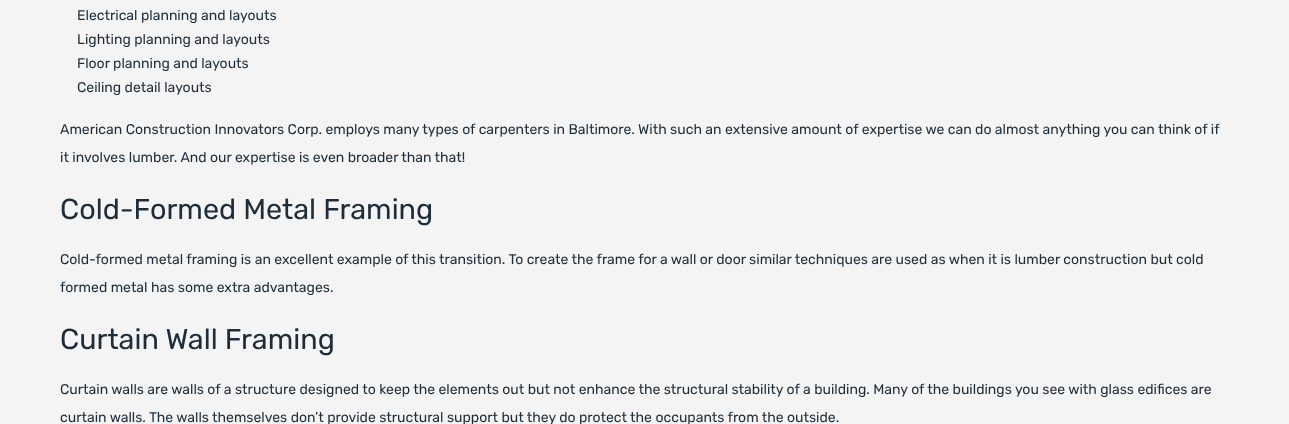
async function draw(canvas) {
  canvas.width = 1289;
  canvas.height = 424;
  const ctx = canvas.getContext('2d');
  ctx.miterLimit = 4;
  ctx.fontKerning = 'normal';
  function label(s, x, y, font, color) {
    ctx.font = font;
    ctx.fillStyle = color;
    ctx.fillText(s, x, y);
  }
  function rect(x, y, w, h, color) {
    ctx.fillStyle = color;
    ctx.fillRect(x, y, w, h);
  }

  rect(0, 0, 1289, 424, '#f4f4f4');
  label('Electrical planning and layouts', 77, 20, '300 14px Rubik', '#1f2d3a');
  label('Lighting planning and layouts', 77, 44, '300 14px Rubik', '#1f2d3a');
  label('Floor planning and layouts', 77, 68, '300 14px Rubik', '#1f2d3a');
  label('Ceiling detail layouts', 77, 92, '300 14px Rubik', '#1f2d3a');
  label('American Construction Innovators Corp. employs many types of carpenters in Baltimore. With such an extensive amount of expertise we can do almost anything you can think of if', 60, 134, '300 14px Rubik', '#1f2d3a');
  label('it involves lumber. And our expertise is even broader than that!', 60, 162, '300 14px Rubik', '#1f2d3a');
  label('Cold-Formed Metal Framing', 60, 219, '300 28.75px Rubik', '#1f2d3a');
  label('Cold-formed metal framing is an excellent example of this transition. To create the frame for a wall or door similar techniques are used as when it is lumber construction but cold', 60, 264, '300 14px Rubik', '#1f2d3a');
  label('formed metal has some extra advantages.', 60, 292, '300 14px Rubik', '#1f2d3a');
  label('Curtain Wall Framing', 60, 349, '300 28.75px Rubik', '#1f2d3a');
  label('Curtain walls are walls of a structure designed to keep the elements out but not enhance the structural stability of a building. Many of the buildings you see with glass edifices are', 60, 394, '300 14px Rubik', '#1f2d3a');
  label('curtain walls. The walls themselves don’t provide structural support but they do protect the occupants from the outside.', 60, 422, '300 14px Rubik', '#1f2d3a');
}

draw(document.querySelector('canvas'));
